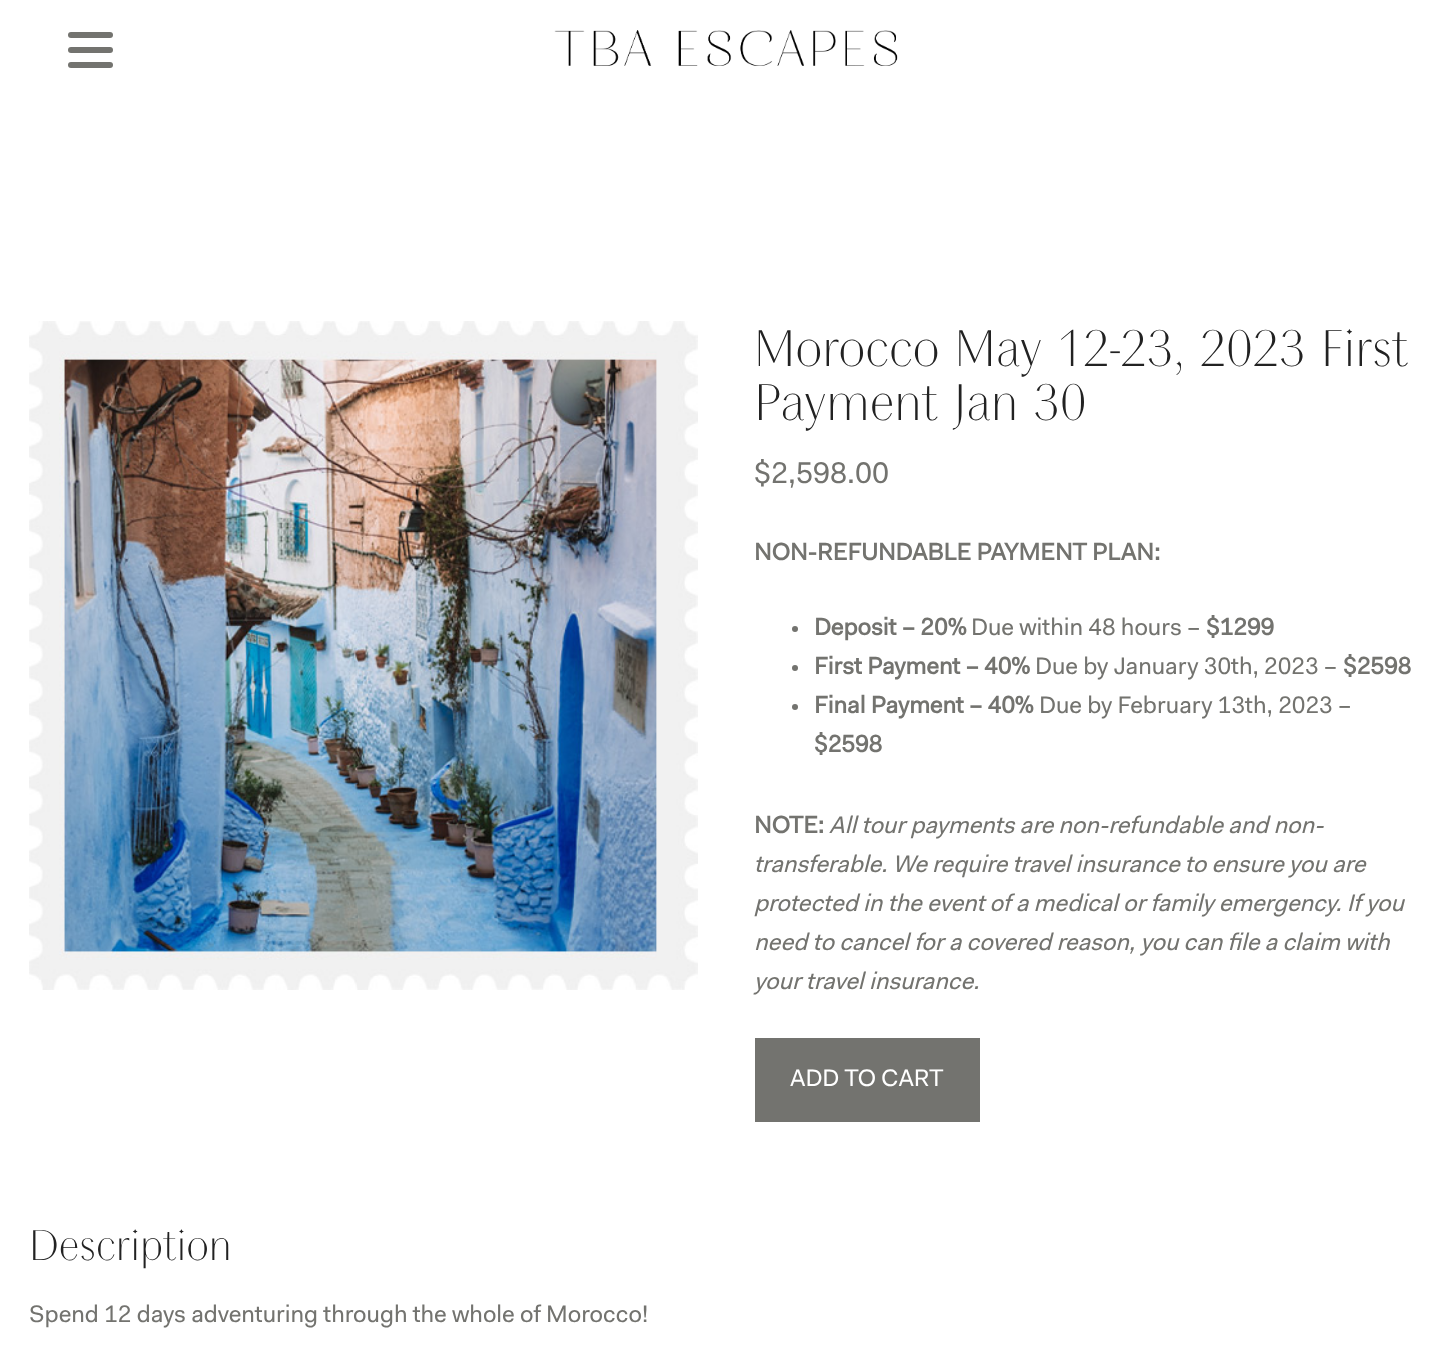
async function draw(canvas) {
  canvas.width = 1452;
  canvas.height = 1356;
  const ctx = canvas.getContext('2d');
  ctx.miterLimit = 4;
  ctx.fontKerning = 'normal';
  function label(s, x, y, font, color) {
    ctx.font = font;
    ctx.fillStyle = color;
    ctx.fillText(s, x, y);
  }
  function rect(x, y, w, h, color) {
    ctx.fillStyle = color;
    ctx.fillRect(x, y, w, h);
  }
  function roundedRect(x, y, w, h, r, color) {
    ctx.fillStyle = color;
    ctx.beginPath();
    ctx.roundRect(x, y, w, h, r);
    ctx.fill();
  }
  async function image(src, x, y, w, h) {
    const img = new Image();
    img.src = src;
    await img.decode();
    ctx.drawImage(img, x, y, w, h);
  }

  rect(0, 0, 1452, 1356, '#fff');
  roundedRect(68, 32, 45, 6, 3, '#73736f');
  roundedRect(68, 47, 45, 6, 3, '#73736f');
  roundedRect(68, 62, 45, 6, 3, '#73736f');
  await image('assets/img1.png', 554, 30, 344, 36);
  await image('assets/img2.png', 29, 321, 669, 669);
  label('Morocco May 12-23, 2023 First', 754, 366, '300 54px "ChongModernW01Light"', '#222');
  label('Payment Jan 30', 754, 420, '300 54px "ChongModernW01Light"', '#222');
  label('$2,598.00', 754, 483, '30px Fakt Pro', '#73736f');
  label('NON-REFUNDABLE PAYMENT PLAN:', 754, 560, 'bold 24px Fakt Pro', '#73736f');
  ctx.beginPath();
  ctx.arc(795, 629, 3, 0, 2 * Math.PI);
  ctx.fill();
  label('Deposit – 20%', 814, 635, 'bold 24px Fakt Pro', '#73736f');
  label('Due within 48 hours –', 971, 635, '24px Fakt Pro', '#73736f');
  label('$1299', 1206, 635, 'bold 24px Fakt Pro', '#73736f');
  ctx.beginPath();
  ctx.arc(795, 668, 3, 0, 2 * Math.PI);
  ctx.fill();
  label('First Payment – 40%', 814, 674, 'bold 24px Fakt Pro', '#73736f');
  label('Due by January 30th, 2023 –', 1035, 674, '24px Fakt Pro', '#73736f');
  label('$2598', 1343, 674, 'bold 24px Fakt Pro', '#73736f');
  ctx.beginPath();
  ctx.arc(795, 707, 3, 0, 2 * Math.PI);
  ctx.fill();
  label('Final Payment – 40%', 814, 713, 'bold 24px Fakt Pro', '#73736f');
  label('Due by February 13th, 2023 –', 1039, 713, '24px Fakt Pro', '#73736f');
  label('$2598', 814, 752, 'bold 24px Fakt Pro', '#73736f');
  label('NOTE:', 754, 833, 'bold 24px Fakt Pro', '#73736f');
  label('All tour payments are non-refundable and non-', 829, 833, 'italic 24px Fakt Pro', '#73736f');
  label('transferable. We require travel insurance to ensure you are', 754, 872, 'italic 24px Fakt Pro', '#73736f');
  label('protected in the event of a medical or family emergency. If you', 754, 911, 'italic 24px Fakt Pro', '#73736f');
  label('need to cancel for a covered reason, you can file a claim with', 754, 950, 'italic 24px Fakt Pro', '#73736f');
  label('your travel insurance.', 754, 989, 'italic 24px Fakt Pro', '#73736f');
  rect(755, 1038, 225, 84, '#73736f');
  label('ADD TO CART', 790, 1086, '24px Fakt Pro', '#fff');
  label('Description', 29, 1260, '300 45px "ChongModernW01Light"', '#222');
  label('Spend 12 days adventuring through the whole of Morocco!', 29, 1322, '24px Fakt Pro', '#73736f');
}

draw(document.querySelector('canvas'));
